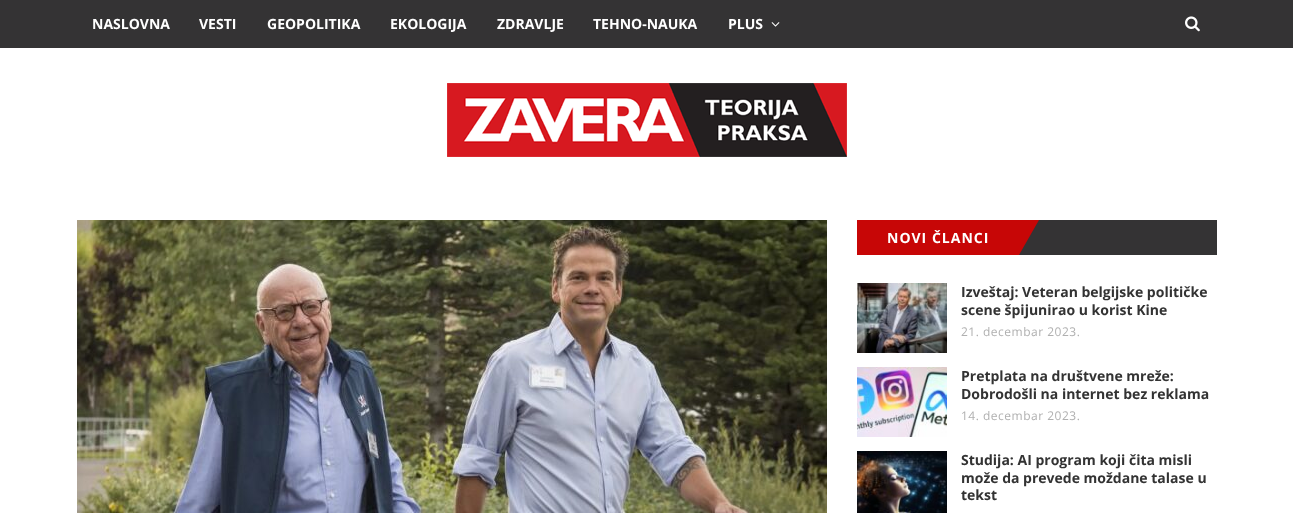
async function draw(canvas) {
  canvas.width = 1293;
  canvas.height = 513;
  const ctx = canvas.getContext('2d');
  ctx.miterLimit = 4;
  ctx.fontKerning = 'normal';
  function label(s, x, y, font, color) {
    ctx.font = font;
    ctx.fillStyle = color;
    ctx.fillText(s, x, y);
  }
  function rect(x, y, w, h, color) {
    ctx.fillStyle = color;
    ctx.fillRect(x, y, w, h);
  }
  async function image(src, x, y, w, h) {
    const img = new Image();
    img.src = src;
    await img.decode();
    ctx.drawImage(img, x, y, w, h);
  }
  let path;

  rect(0, 0, 1293, 513, '#fff');
  rect(0, 0, 1293, 48, '#343334');
  label('NASLOVNA', 92, 29, 'bold 14px Open Sans', '#fff');
  label('VESTI', 199, 29, 'bold 14px Open Sans', '#fff');
  label('GEOPOLITIKA', 267, 29, 'bold 14px Open Sans', '#fff');
  label('EKOLOGIJA', 390, 29, 'bold 14px Open Sans', '#fff');
  label('ZDRAVLJE', 497, 29, 'bold 14px Open Sans', '#fff');
  label('TEHNO-NAUKA', 593, 29, 'bold 14px Open Sans', '#fff');
  label('PLUS', 728, 29, 'bold 14px Open Sans', '#fff');
  await image('assets/img1.png', 771, 22, 9, 5);
  await image('assets/img2.png', 1185, 16, 15, 16);
  await image('assets/img3.png', 447, 83, 400, 74);
  await image('assets/img4.png', 77, 220, 750, 293);
  rect(1019, 220, 198, 35, '#343334');
  rect(857, 220, 162, 35, '#c70606');
  ctx.letterSpacing = '1px';
  label('NOVI ČLANCI', 887, 243, 'bold 14px Open Sans', '#fff');
  ctx.fillStyle = '#c70606';
  path = new Path2D('M1019 220H1039L1019 255Z');
  ctx.fill(path);
  await image('assets/img5.png', 857, 283, 90, 70);
  ctx.letterSpacing = '0px';
  label('Izveštaj: Veteran belgijske političke', 961, 297, 'bold 14px Open Sans', '#333');
  label('scene špijunirao u korist Kine', 961, 315, 'bold 14px Open Sans', '#333');
  ctx.letterSpacing = '0.5px';
  label('21. decembar 2023.', 961, 336, '12px Open Sans', '#b0b0b0');
  await image('assets/img6.png', 857, 367, 90, 70);
  ctx.letterSpacing = '0px';
  label('Pretplata na društvene mreže:', 961, 381, 'bold 14px Open Sans', '#333');
  label('Dobrodošli na internet bez reklama', 961, 399, 'bold 14px Open Sans', '#333');
  ctx.letterSpacing = '0.5px';
  label('14. decembar 2023.', 961, 420, '12px Open Sans', '#b0b0b0');
  await image('assets/img7.png', 857, 451, 90, 62);
  ctx.letterSpacing = '0px';
  label('Studija: AI program koji čita misli', 961, 465, 'bold 14px Open Sans', '#333');
  label('može da prevede moždane talase u', 961, 483, 'bold 14px Open Sans', '#333');
  label('tekst', 961, 500, 'bold 14px Open Sans', '#333');
}

draw(document.querySelector('canvas'));
